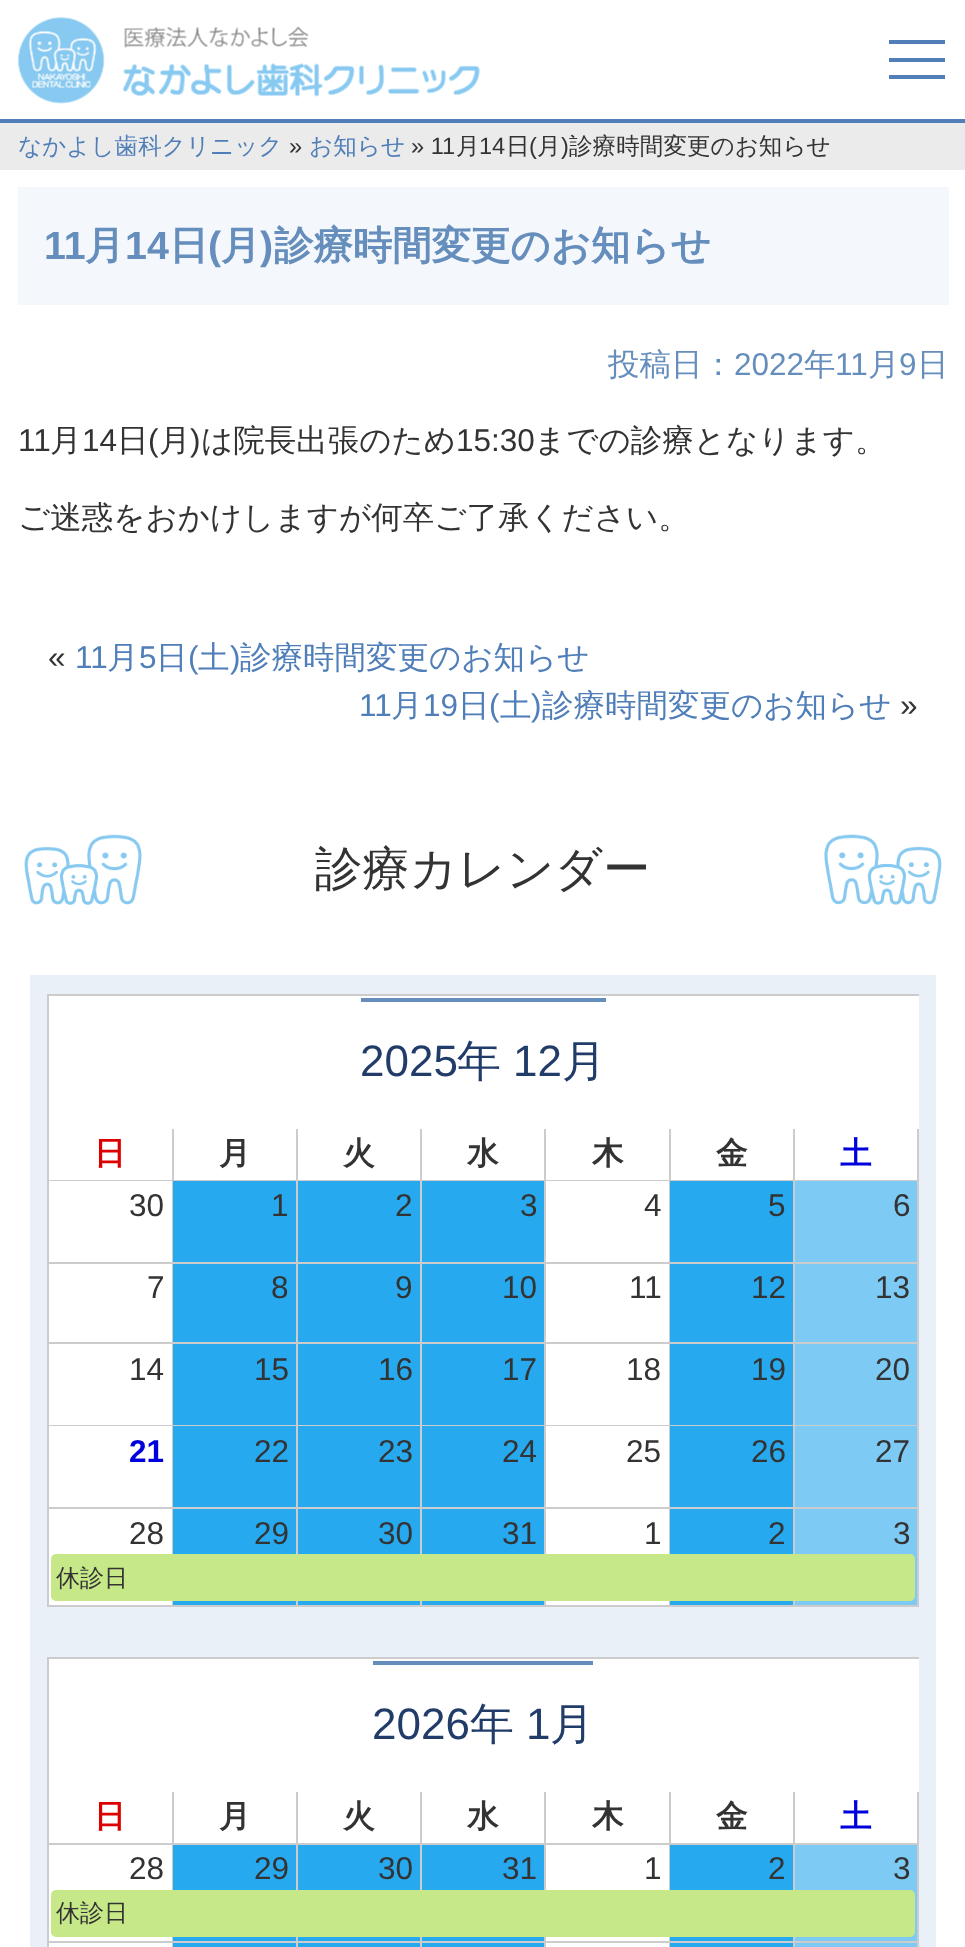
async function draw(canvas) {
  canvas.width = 965;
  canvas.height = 1947;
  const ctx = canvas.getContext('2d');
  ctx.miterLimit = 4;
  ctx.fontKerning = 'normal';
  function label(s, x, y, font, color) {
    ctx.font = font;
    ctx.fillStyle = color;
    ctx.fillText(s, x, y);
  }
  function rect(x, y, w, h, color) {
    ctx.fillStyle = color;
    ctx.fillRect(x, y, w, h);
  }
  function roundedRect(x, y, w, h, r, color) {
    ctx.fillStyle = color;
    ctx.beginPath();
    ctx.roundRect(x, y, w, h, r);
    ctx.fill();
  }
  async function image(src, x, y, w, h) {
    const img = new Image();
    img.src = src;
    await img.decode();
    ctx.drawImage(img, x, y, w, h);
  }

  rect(0, 0, 965, 1947, '#fff');
  rect(0, 119, 965, 4, '#4f7eb8');
  await image('assets/img1.png', 17, 17, 88, 87);
  await image('assets/img2.png', 122, 26, 358, 71);
  rect(889, 58, 56, 4, '#4f7eb8');
  rect(889, 40, 56, 4, '#4f7eb8');
  rect(889, 75, 56, 4, '#4f7eb8');
  rect(0, 123, 965, 47, '#ebebeb');
  label('なかよし歯科クリニック', 18, 154, '500 23.6px WenQuanYi Zen Hei', '#4f7eb8');
  label('»', 289, 154, '23.6px Liberation Sans', '#333');
  label('お知らせ', 309, 154, '500 23.6px WenQuanYi Zen Hei', '#4f7eb8');
  label('» 11', 411, 154, '23.6px Liberation Sans', '#333');
  label('月', 456, 154, '500 23.6px WenQuanYi Zen Hei', '#333');
  label('14', 479, 154, '23.6px Liberation Sans', '#333');
  label('日', 506, 154, '500 23.6px WenQuanYi Zen Hei', '#333');
  label('(', 529, 154, '23.6px Liberation Sans', '#333');
  label('月', 537, 154, '500 23.6px WenQuanYi Zen Hei', '#333');
  label(')', 561, 154, '23.6px Liberation Sans', '#333');
  label('診療時間変更のお知らせ', 569, 154, '500 23.6px WenQuanYi Zen Hei', '#333');
  rect(18, 187, 931, 118, '#f4f8fd');
  label('11', 44, 259, 'bold 39.4px Liberation Sans', '#668ebc');
  label('月', 85, 259, 'bold 39.4px WenQuanYi Zen Hei', '#668ebc');
  label('14', 125, 259, 'bold 39.4px Liberation Sans', '#668ebc');
  label('日', 169, 259, 'bold 39.4px WenQuanYi Zen Hei', '#668ebc');
  label('(', 208, 259, 'bold 39.4px Liberation Sans', '#668ebc');
  label('月', 221, 259, 'bold 39.4px WenQuanYi Zen Hei', '#668ebc');
  label(')', 260, 259, 'bold 39.4px Liberation Sans', '#668ebc');
  label('診療時間変更のお知らせ', 274, 259, 'bold 39.4px WenQuanYi Zen Hei', '#668ebc');
  label('投稿日：', 608, 375, '500 31.5px WenQuanYi Zen Hei', '#668ebc');
  label('2022', 734, 375, '31.5px Liberation Sans', '#668ebc');
  label('年', 804, 375, '500 31.5px WenQuanYi Zen Hei', '#668ebc');
  label('11', 835, 375, '31.5px Liberation Sans', '#668ebc');
  label('月', 868, 375, '500 31.5px WenQuanYi Zen Hei', '#668ebc');
  label('9', 899, 375, '31.5px Liberation Sans', '#668ebc');
  label('日', 917, 375, '500 31.5px WenQuanYi Zen Hei', '#668ebc');
  label('11', 18, 451, '31.5px Liberation Sans', '#333');
  label('月', 50, 451, '500 31.5px WenQuanYi Zen Hei', '#333');
  label('14', 82, 451, '31.5px Liberation Sans', '#333');
  label('日', 117, 451, '500 31.5px WenQuanYi Zen Hei', '#333');
  label('(', 148, 451, '31.5px Liberation Sans', '#333');
  label('月', 159, 451, '500 31.5px WenQuanYi Zen Hei', '#333');
  label(')', 190, 451, '31.5px Liberation Sans', '#333');
  label('は院長出張のため', 201, 451, '500 31.5px WenQuanYi Zen Hei', '#333');
  label('15:30', 456, 451, '31.5px Liberation Sans', '#333');
  label('までの診療となります。', 534, 451, '500 31.5px WenQuanYi Zen Hei', '#333');
  label('ご迷惑をおかけしますが何卒ご了承ください。', 18, 528, '500 31.5px WenQuanYi Zen Hei', '#333');
  label('«', 48, 668, '31.5px Liberation Sans', '#333');
  label('11', 75, 668, '31.5px Liberation Sans', '#4f7eb8');
  label('月', 107, 668, '500 31.5px WenQuanYi Zen Hei', '#4f7eb8');
  label('5', 139, 668, '31.5px Liberation Sans', '#4f7eb8');
  label('日', 156, 668, '500 31.5px WenQuanYi Zen Hei', '#4f7eb8');
  label('(', 188, 668, '31.5px Liberation Sans', '#4f7eb8');
  label('土', 198, 668, '500 31.5px WenQuanYi Zen Hei', '#4f7eb8');
  label(')', 230, 668, '31.5px Liberation Sans', '#4f7eb8');
  label('診療時間変更のお知らせ', 240, 668, '500 31.5px WenQuanYi Zen Hei', '#4f7eb8');
  label('11', 359, 716, '31.5px Liberation Sans', '#4f7eb8');
  label('月', 391, 716, '500 31.5px WenQuanYi Zen Hei', '#4f7eb8');
  label('19', 423, 716, '31.5px Liberation Sans', '#4f7eb8');
  label('日', 458, 716, '500 31.5px WenQuanYi Zen Hei', '#4f7eb8');
  label('(', 489, 716, '31.5px Liberation Sans', '#4f7eb8');
  label('土', 500, 716, '500 31.5px WenQuanYi Zen Hei', '#4f7eb8');
  label(')', 531, 716, '31.5px Liberation Sans', '#4f7eb8');
  label('診療時間変更のお知らせ', 542, 716, '500 31.5px WenQuanYi Zen Hei', '#4f7eb8');
  label('»', 900, 716, '31.5px Liberation Sans', '#333');
  await image('assets/img3.png', 24, 834, 918, 71);
  label('診療カレンダー', 315, 885, '500 47.25px WenQuanYi Zen Hei', '#333');
  rect(30, 975, 906, 972, '#eaf0f8');
  rect(49, 996, 870, 609, '#fff');
  rect(47, 994, 872, 2, '#ccc');
  rect(47, 1605, 872, 2, '#ccc');
  rect(47, 994, 2, 613, '#ccc');
  rect(361, 998, 245, 4, '#668ebc');
  label('2025', 360, 1076, '44px Liberation Sans', '#223c6a');
  label('年', 457, 1076, '500 44px WenQuanYi Zen Hei', '#223c6a');
  label('12', 513, 1076, '44px Liberation Sans', '#223c6a');
  label('月', 562, 1076, '500 44px WenQuanYi Zen Hei', '#223c6a');
  rect(172, 1129, 2, 51, '#ccc');
  label('日', 94, 1164, 'bold 31.5px WenQuanYi Zen Hei', '#d00');
  rect(296, 1129, 2, 51, '#ccc');
  label('月', 219, 1164, 'bold 31.5px WenQuanYi Zen Hei', '#333');
  rect(420, 1129, 2, 51, '#ccc');
  label('火', 343, 1164, 'bold 31.5px WenQuanYi Zen Hei', '#333');
  rect(544, 1129, 2, 51, '#ccc');
  label('水', 467, 1164, 'bold 31.5px WenQuanYi Zen Hei', '#333');
  rect(669, 1129, 2, 51, '#ccc');
  label('木', 592, 1164, 'bold 31.5px WenQuanYi Zen Hei', '#333');
  rect(793, 1129, 2, 51, '#ccc');
  label('金', 716, 1164, 'bold 31.5px WenQuanYi Zen Hei', '#333');
  rect(917, 1129, 2, 51, '#ccc');
  label('土', 840, 1164, 'bold 31.5px WenQuanYi Zen Hei', '#00d');
  rect(49, 1180, 870, 1, '#ccc');
  rect(172, 1180, 1, 82, '#ccc');
  label('30', 129, 1216, '31.5px Liberation Sans', '#333');
  rect(296, 1180, 2, 82, '#ccc');
  rect(173, 1181, 123, 81, '#26a9ef');
  label('1', 271, 1216, '31.5px Liberation Sans', '#333');
  rect(420, 1180, 2, 82, '#ccc');
  rect(298, 1181, 122, 81, '#26a9ef');
  label('2', 395, 1216, '31.5px Liberation Sans', '#333');
  rect(544, 1180, 2, 82, '#ccc');
  rect(422, 1181, 122, 81, '#26a9ef');
  label('3', 520, 1216, '31.5px Liberation Sans', '#333');
  rect(669, 1180, 1, 82, '#ccc');
  label('4', 644, 1216, '31.5px Liberation Sans', '#333');
  rect(793, 1180, 2, 82, '#ccc');
  rect(670, 1181, 123, 81, '#26a9ef');
  label('5', 768, 1216, '31.5px Liberation Sans', '#333');
  rect(917, 1180, 2, 82, '#ccc');
  rect(795, 1181, 122, 81, '#7dcbf5');
  label('6', 893, 1216, '31.5px Liberation Sans', '#333');
  rect(49, 1262, 870, 2, '#ccc');
  rect(172, 1262, 1, 80, '#ccc');
  label('7', 147, 1298, '31.5px Liberation Sans', '#333');
  rect(296, 1262, 2, 80, '#ccc');
  rect(173, 1264, 123, 78, '#26a9ef');
  label('8', 271, 1298, '31.5px Liberation Sans', '#333');
  rect(420, 1262, 2, 80, '#ccc');
  rect(298, 1264, 122, 78, '#26a9ef');
  label('9', 395, 1298, '31.5px Liberation Sans', '#333');
  rect(544, 1262, 2, 80, '#ccc');
  rect(422, 1264, 122, 78, '#26a9ef');
  label('10', 502, 1298, '31.5px Liberation Sans', '#333');
  rect(669, 1262, 1, 80, '#ccc');
  label('11', 629, 1298, '31.5px Liberation Sans', '#333');
  rect(793, 1262, 2, 80, '#ccc');
  rect(670, 1264, 123, 78, '#26a9ef');
  label('12', 751, 1298, '31.5px Liberation Sans', '#333');
  rect(917, 1262, 2, 80, '#ccc');
  rect(795, 1264, 122, 78, '#7dcbf5');
  label('13', 875, 1298, '31.5px Liberation Sans', '#333');
  rect(49, 1342, 870, 2, '#ccc');
  rect(172, 1342, 1, 83, '#ccc');
  label('14', 129, 1380, '31.5px Liberation Sans', '#333');
  rect(296, 1342, 2, 83, '#ccc');
  rect(173, 1344, 123, 81, '#26a9ef');
  label('15', 254, 1380, '31.5px Liberation Sans', '#333');
  rect(420, 1342, 2, 83, '#ccc');
  rect(298, 1344, 122, 81, '#26a9ef');
  label('16', 378, 1380, '31.5px Liberation Sans', '#333');
  rect(544, 1342, 2, 83, '#ccc');
  rect(422, 1344, 122, 81, '#26a9ef');
  label('17', 502, 1380, '31.5px Liberation Sans', '#333');
  rect(669, 1342, 1, 83, '#ccc');
  label('18', 626, 1380, '31.5px Liberation Sans', '#333');
  rect(793, 1342, 2, 83, '#ccc');
  rect(670, 1344, 123, 81, '#26a9ef');
  label('19', 751, 1380, '31.5px Liberation Sans', '#333');
  rect(917, 1342, 2, 83, '#ccc');
  rect(795, 1344, 122, 81, '#7dcbf5');
  label('20', 875, 1380, '31.5px Liberation Sans', '#333');
  rect(49, 1425, 870, 1, '#ccc');
  rect(172, 1425, 1, 82, '#ccc');
  label('21', 129, 1462, 'bold 31.5px Liberation Sans', '#00d');
  rect(296, 1425, 2, 82, '#ccc');
  rect(173, 1426, 123, 81, '#26a9ef');
  label('22', 254, 1462, '31.5px Liberation Sans', '#333');
  rect(420, 1425, 2, 82, '#ccc');
  rect(298, 1426, 122, 81, '#26a9ef');
  label('23', 378, 1462, '31.5px Liberation Sans', '#333');
  rect(544, 1425, 2, 82, '#ccc');
  rect(422, 1426, 122, 81, '#26a9ef');
  label('24', 502, 1462, '31.5px Liberation Sans', '#333');
  rect(669, 1425, 1, 82, '#ccc');
  label('25', 626, 1462, '31.5px Liberation Sans', '#333');
  rect(793, 1425, 2, 82, '#ccc');
  rect(670, 1426, 123, 81, '#26a9ef');
  label('26', 751, 1462, '31.5px Liberation Sans', '#333');
  rect(917, 1425, 2, 82, '#ccc');
  rect(795, 1426, 122, 81, '#7dcbf5');
  label('27', 875, 1462, '31.5px Liberation Sans', '#333');
  rect(49, 1507, 870, 2, '#ccc');
  rect(172, 1507, 1, 98, '#ccc');
  label('28', 129, 1544, '31.5px Liberation Sans', '#333');
  rect(296, 1507, 2, 98, '#ccc');
  rect(173, 1509, 123, 96, '#26a9ef');
  label('29', 254, 1544, '31.5px Liberation Sans', '#333');
  rect(420, 1507, 2, 98, '#ccc');
  rect(298, 1509, 122, 96, '#26a9ef');
  label('30', 378, 1544, '31.5px Liberation Sans', '#333');
  rect(544, 1507, 2, 98, '#ccc');
  rect(422, 1509, 122, 96, '#26a9ef');
  label('31', 502, 1544, '31.5px Liberation Sans', '#333');
  rect(669, 1507, 1, 98, '#ccc');
  label('1', 644, 1544, '31.5px Liberation Sans', '#333');
  rect(793, 1507, 2, 98, '#ccc');
  rect(670, 1509, 123, 96, '#26a9ef');
  label('2', 768, 1544, '31.5px Liberation Sans', '#333');
  rect(917, 1507, 2, 98, '#ccc');
  rect(795, 1509, 122, 96, '#7dcbf5');
  label('3', 893, 1544, '31.5px Liberation Sans', '#333');
  roundedRect(51, 1554, 864, 47, 5, '#c6e888');
  label('休診日', 56, 1586, '500 24px WenQuanYi Zen Hei', '#333');
  rect(49, 1659, 870, 288, '#fff');
  rect(47, 1657, 872, 2, '#ccc');
  rect(47, 1657, 2, 290, '#ccc');
  rect(373, 1661, 220, 4, '#668ebc');
  label('2026', 372, 1739, '44px Liberation Sans', '#223c6a');
  label('年', 470, 1739, '500 44px WenQuanYi Zen Hei', '#223c6a');
  label('1', 526, 1739, '44px Liberation Sans', '#223c6a');
  label('月', 550, 1739, '500 44px WenQuanYi Zen Hei', '#223c6a');
  rect(172, 1792, 2, 51, '#ccc');
  label('日', 94, 1827, 'bold 31.5px WenQuanYi Zen Hei', '#d00');
  rect(296, 1792, 2, 51, '#ccc');
  label('月', 219, 1827, 'bold 31.5px WenQuanYi Zen Hei', '#333');
  rect(420, 1792, 2, 51, '#ccc');
  label('火', 343, 1827, 'bold 31.5px WenQuanYi Zen Hei', '#333');
  rect(544, 1792, 2, 51, '#ccc');
  label('水', 467, 1827, 'bold 31.5px WenQuanYi Zen Hei', '#333');
  rect(669, 1792, 2, 51, '#ccc');
  label('木', 592, 1827, 'bold 31.5px WenQuanYi Zen Hei', '#333');
  rect(793, 1792, 2, 51, '#ccc');
  label('金', 716, 1827, 'bold 31.5px WenQuanYi Zen Hei', '#333');
  rect(917, 1792, 2, 51, '#ccc');
  label('土', 840, 1827, 'bold 31.5px WenQuanYi Zen Hei', '#00d');
  rect(49, 1843, 870, 2, '#ccc');
  rect(172, 1843, 1, 98, '#ccc');
  label('28', 129, 1879, '31.5px Liberation Sans', '#333');
  rect(296, 1843, 2, 98, '#ccc');
  rect(173, 1845, 123, 96, '#26a9ef');
  label('29', 254, 1879, '31.5px Liberation Sans', '#333');
  rect(420, 1843, 2, 98, '#ccc');
  rect(298, 1845, 122, 96, '#26a9ef');
  label('30', 378, 1879, '31.5px Liberation Sans', '#333');
  rect(544, 1843, 2, 98, '#ccc');
  rect(422, 1845, 122, 96, '#26a9ef');
  label('31', 502, 1879, '31.5px Liberation Sans', '#333');
  rect(669, 1843, 1, 98, '#ccc');
  label('1', 644, 1879, '31.5px Liberation Sans', '#333');
  rect(793, 1843, 2, 98, '#ccc');
  rect(670, 1845, 123, 96, '#26a9ef');
  label('2', 768, 1879, '31.5px Liberation Sans', '#333');
  rect(917, 1843, 2, 98, '#ccc');
  rect(795, 1845, 122, 96, '#7dcbf5');
  label('3', 893, 1879, '31.5px Liberation Sans', '#333');
  roundedRect(51, 1890, 864, 47, 5, '#c6e888');
  label('休診日', 56, 1921, '500 24px WenQuanYi Zen Hei', '#333');
  rect(49, 1941, 870, 2, '#ccc');
  rect(172, 1941, 1, 6, '#ccc');
  rect(296, 1941, 2, 6, '#ccc');
  rect(173, 1943, 123, 4, '#26a9ef');
  rect(420, 1941, 2, 6, '#ccc');
  rect(298, 1943, 122, 4, '#26a9ef');
  rect(544, 1941, 2, 6, '#ccc');
  rect(422, 1943, 122, 4, '#26a9ef');
  rect(669, 1941, 1, 6, '#ccc');
  rect(793, 1941, 2, 6, '#ccc');
  rect(670, 1943, 123, 4, '#26a9ef');
  rect(917, 1941, 2, 6, '#ccc');
  rect(795, 1943, 122, 4, '#7dcbf5');
}

draw(document.querySelector('canvas'));
